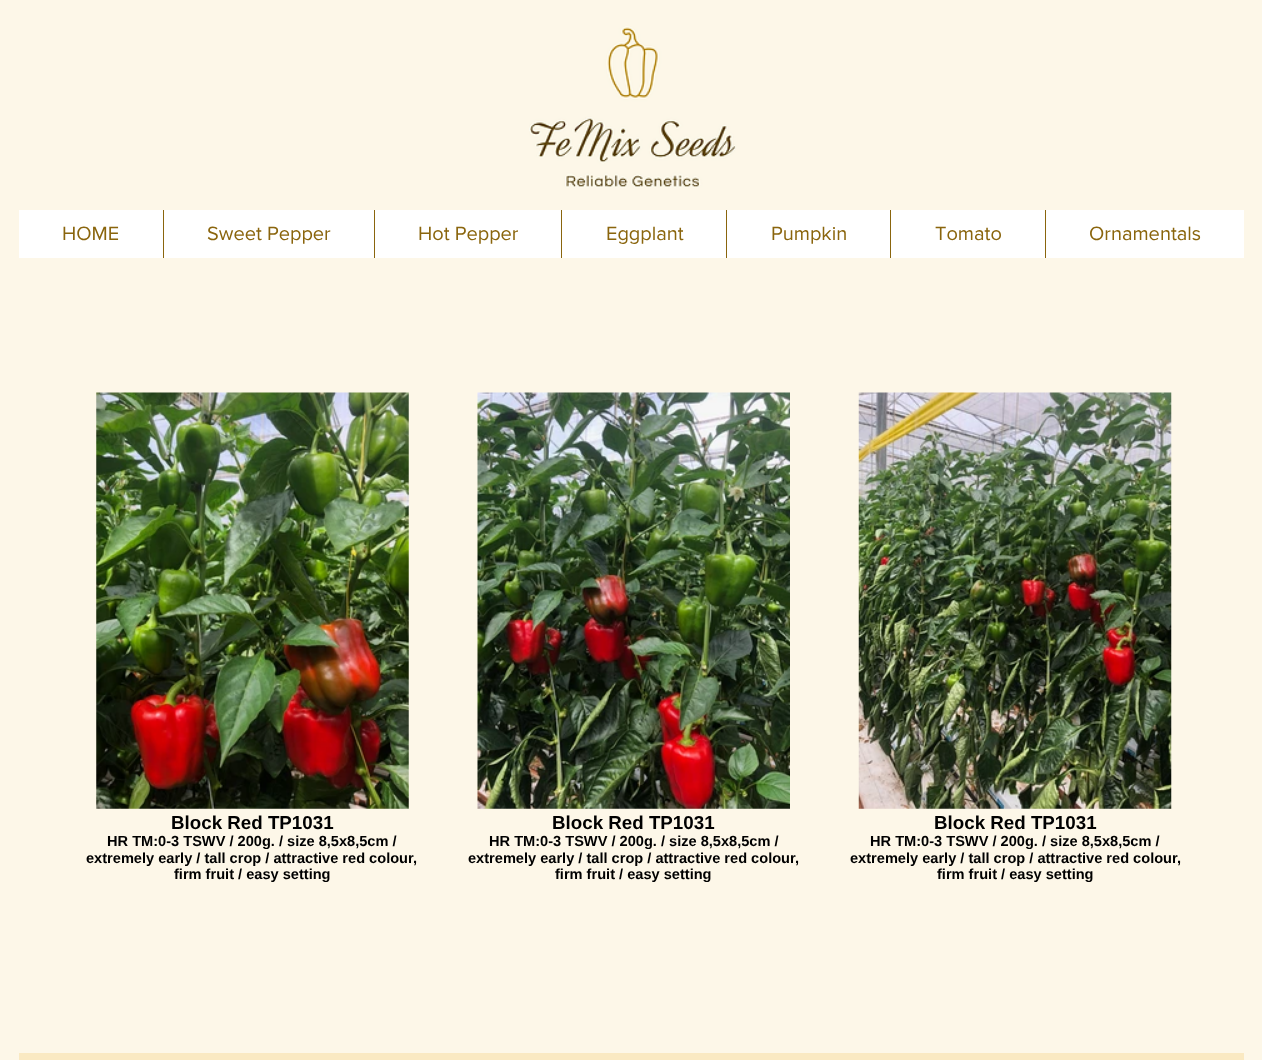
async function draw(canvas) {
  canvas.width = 1262;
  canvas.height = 1060;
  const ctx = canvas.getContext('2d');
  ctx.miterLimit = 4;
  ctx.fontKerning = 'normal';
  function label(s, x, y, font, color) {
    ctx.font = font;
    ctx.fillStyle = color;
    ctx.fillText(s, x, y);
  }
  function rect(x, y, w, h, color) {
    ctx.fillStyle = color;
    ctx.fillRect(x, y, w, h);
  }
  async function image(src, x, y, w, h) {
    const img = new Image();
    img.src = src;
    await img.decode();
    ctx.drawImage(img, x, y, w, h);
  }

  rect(0, 0, 1262, 1060, '#fdf7e8');
  await image('assets/img1.png', 529, 26, 207, 162);
  rect(19, 210, 1225, 48, '#fff');
  label('HOME', 62, 240, '20px "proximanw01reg"', '#8a650d');
  rect(163, 210, 1, 48, '#8a650d');
  label('Sweet Pepper', 207, 240, '20px "proximanw01reg"', '#8a650d');
  rect(374, 210, 1, 48, '#8a650d');
  label('Hot Pepper', 418, 240, '20px "proximanw01reg"', '#8a650d');
  rect(561, 210, 1, 48, '#8a650d');
  label('Eggplant', 606, 240, '20px "proximanw01reg"', '#8a650d');
  rect(726, 210, 1, 48, '#8a650d');
  label('Pumpkin', 771, 240, '20px "proximanw01reg"', '#8a650d');
  rect(890, 210, 1, 48, '#8a650d');
  label('Tomato', 935, 240, '20px "proximanw01reg"', '#8a650d');
  rect(1045, 210, 1, 48, '#8a650d');
  label('Ornamentals', 1089, 240, '20px "proximanw01reg"', '#8a650d');
  await image('assets/img2.png', 96, 392, 313, 417);
  label('Block Red TP1031', 171, 829, 'bold 18.75px Liberation Sans', '#000');
  label('HR TM:0-3 TSWV / 200g. / size 8,5x8,5cm /', 107, 846, 'bold 14.6px Liberation Sans', '#000');
  label('extremely early / tall crop / attractive red colour,', 86, 863, 'bold 14.6px Liberation Sans', '#000');
  label('firm fruit / easy setting', 174, 879, 'bold 14.6px Liberation Sans', '#000');
  await image('assets/img3.png', 477, 392, 313, 417);
  label('Block Red TP1031', 552, 829, 'bold 18.75px Liberation Sans', '#000');
  label('HR TM:0-3 TSWV / 200g. / size 8,5x8,5cm /', 489, 846, 'bold 14.6px Liberation Sans', '#000');
  label('extremely early / tall crop / attractive red colour,', 468, 863, 'bold 14.6px Liberation Sans', '#000');
  label('firm fruit / easy setting', 555, 879, 'bold 14.6px Liberation Sans', '#000');
  await image('assets/img4.png', 858, 392, 314, 417);
  label('Block Red TP1031', 934, 829, 'bold 18.75px Liberation Sans', '#000');
  label('HR TM:0-3 TSWV / 200g. / size 8,5x8,5cm /', 870, 846, 'bold 14.6px Liberation Sans', '#000');
  label('extremely early / tall crop / attractive red colour,', 850, 863, 'bold 14.6px Liberation Sans', '#000');
  label('firm fruit / easy setting', 937, 879, 'bold 14.6px Liberation Sans', '#000');
  rect(19, 1053, 1225, 7, '#fae9c2');
}

draw(document.querySelector('canvas'));
